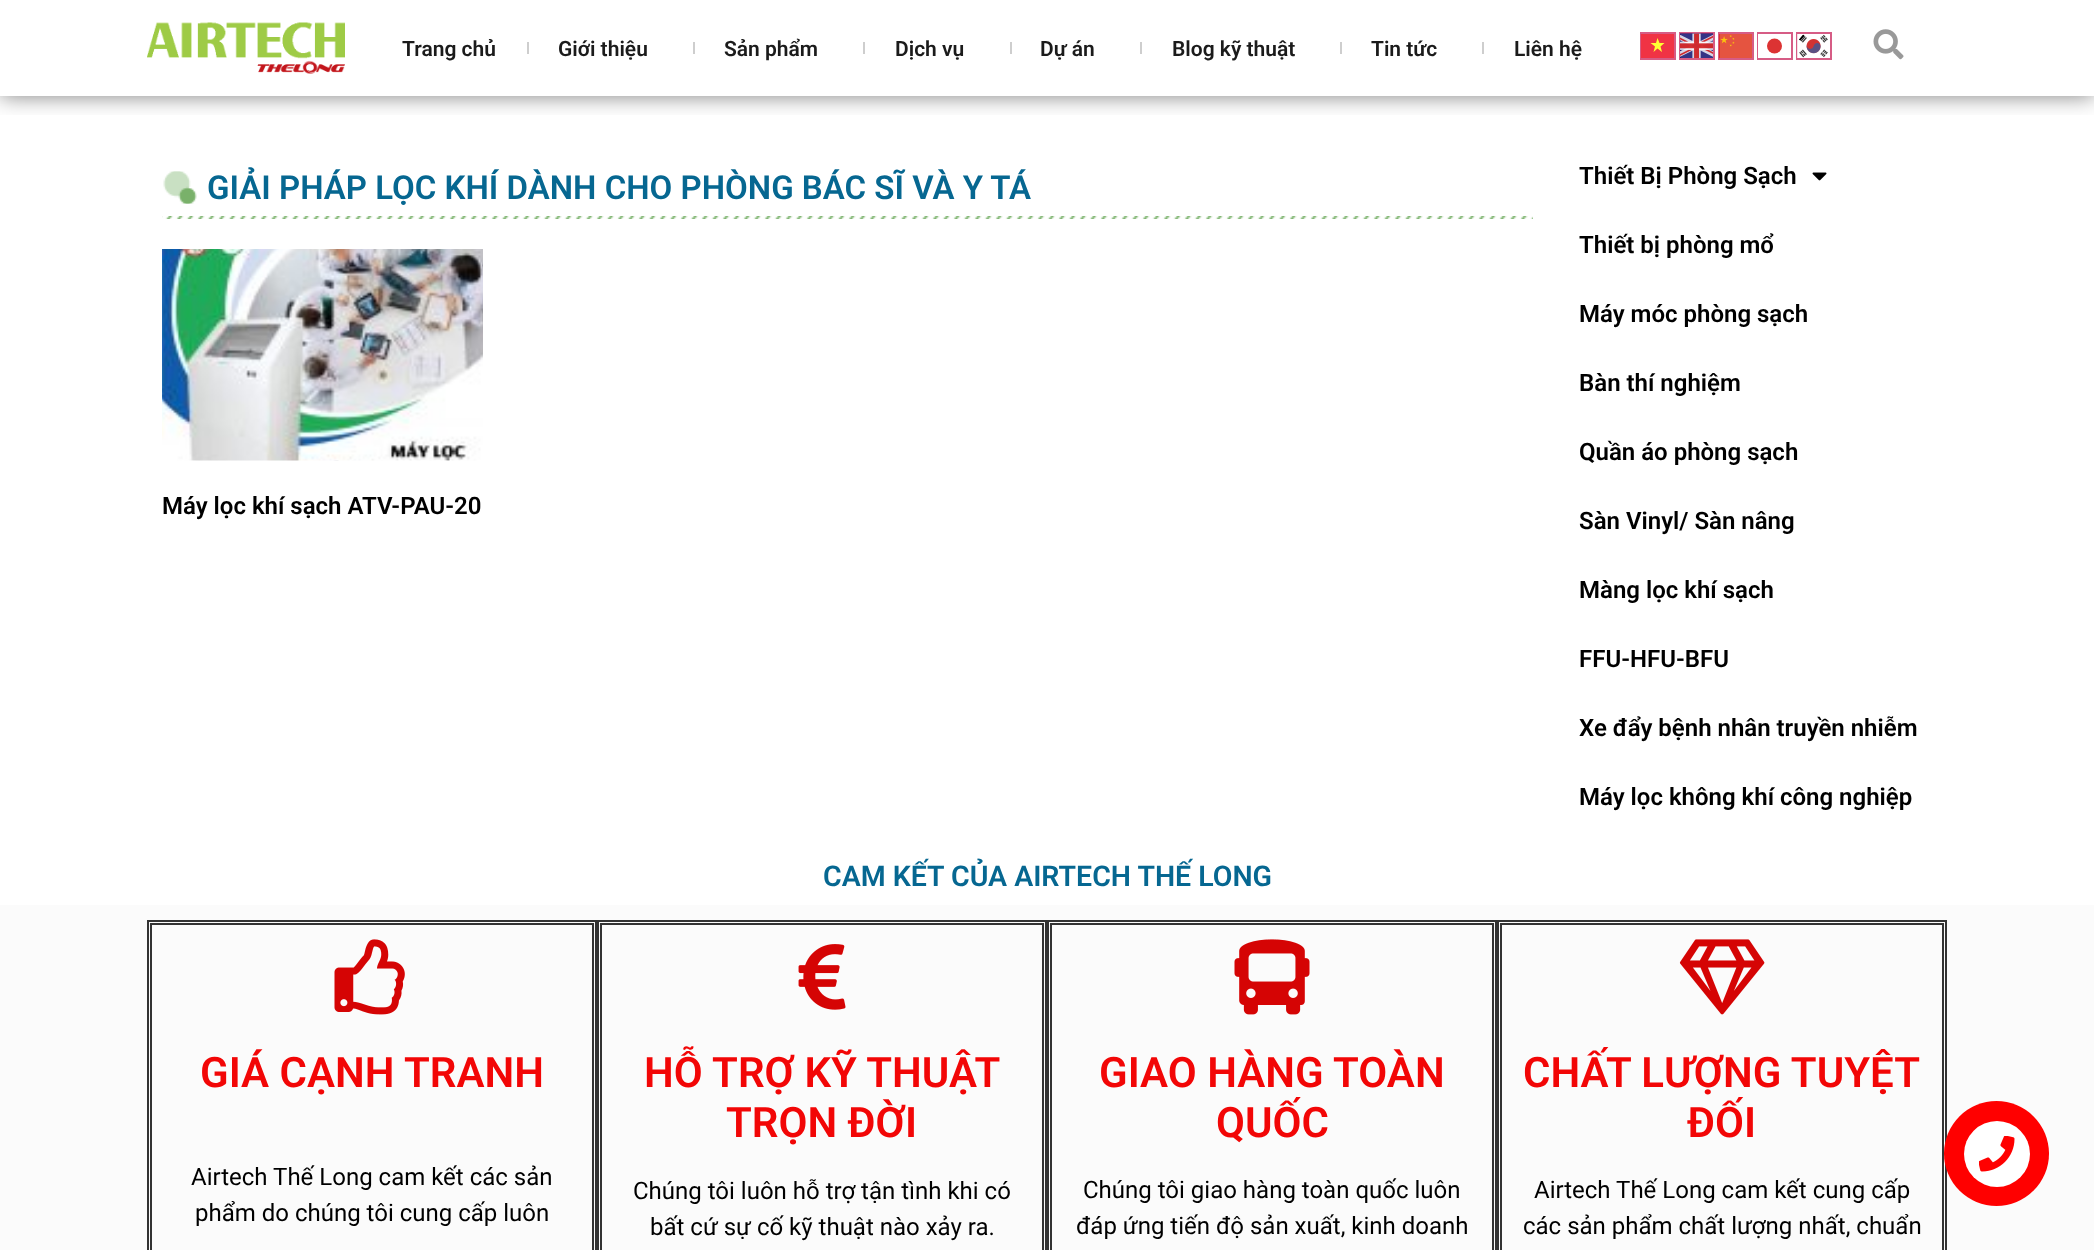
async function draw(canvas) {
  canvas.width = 2094;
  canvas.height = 1250;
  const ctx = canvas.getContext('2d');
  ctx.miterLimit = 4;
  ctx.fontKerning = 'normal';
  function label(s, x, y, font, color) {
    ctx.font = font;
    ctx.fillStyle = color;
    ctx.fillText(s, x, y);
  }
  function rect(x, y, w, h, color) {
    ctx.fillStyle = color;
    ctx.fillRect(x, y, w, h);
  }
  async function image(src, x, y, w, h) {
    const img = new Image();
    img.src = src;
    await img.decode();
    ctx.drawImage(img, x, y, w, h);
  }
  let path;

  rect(0, 0, 2094, 1250, '#fff');
  ctx.save();
  ctx.beginPath();
  ctx.rect(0, 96, 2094, 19);
  ctx.clip();
  ctx.fillStyle = '#00000080';
  ctx.filter = 'blur(11px)';
  ctx.beginPath();
  ctx.rect(0, 0, 2094, 96);
  ctx.fill();
  ctx.filter = 'none';
  ctx.restore();
  await image('assets/img1.png', 147, 22, 198, 52);
  label('Trang chủ', 402, 56, '600 21px Roboto', '#1b1b1b');
  rect(527, 42, 2, 12, '#cecece');
  label('Giới thiệu', 558, 56, '600 21px Roboto', '#1b1b1b');
  rect(693, 42, 2, 12, '#cecece');
  label('Sản phẩm', 724, 56, '600 21px Roboto', '#1b1b1b');
  rect(863, 42, 2, 12, '#cecece');
  label('Dịch vụ', 895, 56, '600 21px Roboto', '#1b1b1b');
  rect(1010, 42, 2, 12, '#cecece');
  label('Dự án', 1040, 56, '600 21px Roboto', '#1b1b1b');
  rect(1140, 42, 2, 12, '#cecece');
  label('Blog kỹ thuật', 1172, 56, '600 21px Roboto', '#1b1b1b');
  rect(1340, 42, 2, 12, '#cecece');
  label('Tin tức', 1371, 56, '600 21px Roboto', '#1b1b1b');
  rect(1482, 42, 2, 12, '#cecece');
  label('Liên hệ', 1514, 56, '600 21px Roboto', '#1b1b1b');
  ctx.strokeStyle = '#d65c85';
  ctx.lineWidth = 2;
  ctx.strokeRect(1641, 33, 34, 26);
  ctx.strokeRect(1680, 33, 34, 26);
  ctx.strokeRect(1719, 33, 34, 26);
  ctx.strokeRect(1758, 33, 34, 26);
  ctx.strokeRect(1797, 33, 34, 26);
  rect(1641, 34, 33, 24, '#f03344');
  await image('assets/img2.png', 1680, 33, 33, 26);
  await image('assets/img3.png', 1719, 34, 33, 24);
  rect(1758, 34, 1, 24, '#fff');
  await image('assets/img4.png', 1797, 34, 31, 24);
  ctx.fillStyle = '#ff3';
  path = new Path2D('M1662 52L1657.5 48.5L1653.5 52L1655 46.5L1650.5 43H1656L1657.5 38L1659.5 43H1664.5L1660.5 46.5Z');
  ctx.fill(path, 'evenodd');
  ctx.fillStyle = '#dc3333';
  ctx.beginPath();
  ctx.arc(1774.5, 46, 7.5, 0, 2 * Math.PI);
  ctx.fill();
  await image('assets/img5.png', 1873, 29, 31, 31);
  await image('assets/img6.png', 162, 216, 1371, 3);
  await image('assets/img7.png', 163, 171, 34, 33);
  label('GIẢI PHÁP LỌC KHÍ DÀNH CHO PHÒNG BÁC SĨ VÀ Y TÁ', 207, 199, '600 33px Roboto', '#066791');
  await image('assets/img8.png', 162, 249, 321, 212);
  label('Máy lọc khí sạch ATV-PAU-20', 162, 514, '600 24px Roboto', '#000');
  label('Thiết Bị Phòng Sạch', 1579, 184, '600 24px Roboto', '#000');
  await image('assets/img9.png', 1812, 172, 15, 9);
  label('Thiết bị phòng mổ', 1579, 253, '600 24px Roboto', '#000');
  label('Máy móc phòng sạch', 1579, 322, '600 24px Roboto', '#000');
  label('Bàn thí nghiệm', 1579, 391, '600 24px Roboto', '#000');
  label('Quần áo phòng sạch', 1579, 460, '600 24px Roboto', '#000');
  label('Sàn Vinyl/ Sàn nâng', 1579, 529, '600 24px Roboto', '#000');
  label('Màng lọc khí sạch', 1579, 598, '600 24px Roboto', '#000');
  label('FFU-HFU-BFU', 1579, 667, '600 24px Roboto', '#000');
  label('Xe đẩy bệnh nhân truyền nhiễm', 1579, 736, '600 24px Roboto', '#000');
  label('Máy lọc không khí công nghiệp', 1579, 805, '600 24px Roboto', '#000');
  label('CAM KẾT CỦA AIRTECH THẾ LONG', 823, 886, '600 28.5px Roboto', '#066791');
  rect(0, 905, 2094, 345, '#fbfbfb');
  ctx.strokeStyle = '#333';
  ctx.strokeRect(148, 921, 448, 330);
  ctx.strokeRect(151, 924, 442, 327);
  await image('assets/img10.png', 334, 939, 71, 76);
  label('GIÁ CẠNH TRANH', 200, 1087, '600 42px Roboto', '#f20606');
  label('Airtech Thế Long cam kết các sản', 191, 1185, '24px Roboto', '#000');
  label('phẩm do chúng tôi cung cấp luôn', 195, 1221, '24px Roboto', '#000');
  ctx.strokeRect(598, 921, 448, 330);
  ctx.strokeRect(601, 924, 442, 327);
  await image('assets/img11.png', 798, 944, 48, 66);
  label('HỖ TRỢ KỸ THUẬT', 644, 1087, '600 42px Roboto', '#f20606');
  label('TRỌN ĐỜI', 726, 1137, '600 42px Roboto', '#f20606');
  label('Chúng tôi luôn hỗ trợ tận tình khi có', 633, 1199, '24px Roboto', '#000');
  label('bất cứ sự cố kỹ thuật nào xảy ra.', 650, 1235, '24px Roboto', '#000');
  ctx.strokeRect(1048, 921, 448, 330);
  ctx.strokeRect(1051, 924, 442, 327);
  await image('assets/img12.png', 1234, 939, 76, 76);
  label('GIAO HÀNG TOÀN', 1099, 1087, '600 42px Roboto', '#f20606');
  label('QUỐC', 1216, 1137, '600 42px Roboto', '#f20606');
  label('Chúng tôi giao hàng toàn quốc luôn', 1083, 1198, '24px Roboto', '#000');
  label('đáp ứng tiến độ sản xuất, kinh doanh', 1076, 1234, '24px Roboto', '#000');
  ctx.strokeRect(1498, 921, 448, 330);
  ctx.strokeRect(1501, 924, 442, 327);
  await image('assets/img13.png', 1679, 939, 86, 76);
  label('CHẤT LƯỢNG TUYỆT', 1523, 1087, '600 42px Roboto', '#f20606');
  label('ĐỐI', 1687, 1137, '600 42px Roboto', '#f20606');
  label('Airtech Thế Long cam kết cung cấp', 1534, 1198, '24px Roboto', '#000');
  label('các sản phẩm chất lượng nhất, chuẩn', 1523, 1234, '24px Roboto', '#000');
  ctx.fillStyle = '#f00';
  ctx.beginPath();
  ctx.arc(1996.5, 1153.5, 52.5, 0, 2 * Math.PI);
  ctx.fill();
  ctx.fillStyle = '#fff';
  ctx.beginPath();
  ctx.arc(1997, 1154, 33, 0, 2 * Math.PI);
  ctx.fill();
  await image('assets/img14.png', 1979, 1136, 36, 36);
}

draw(document.querySelector('canvas'));
